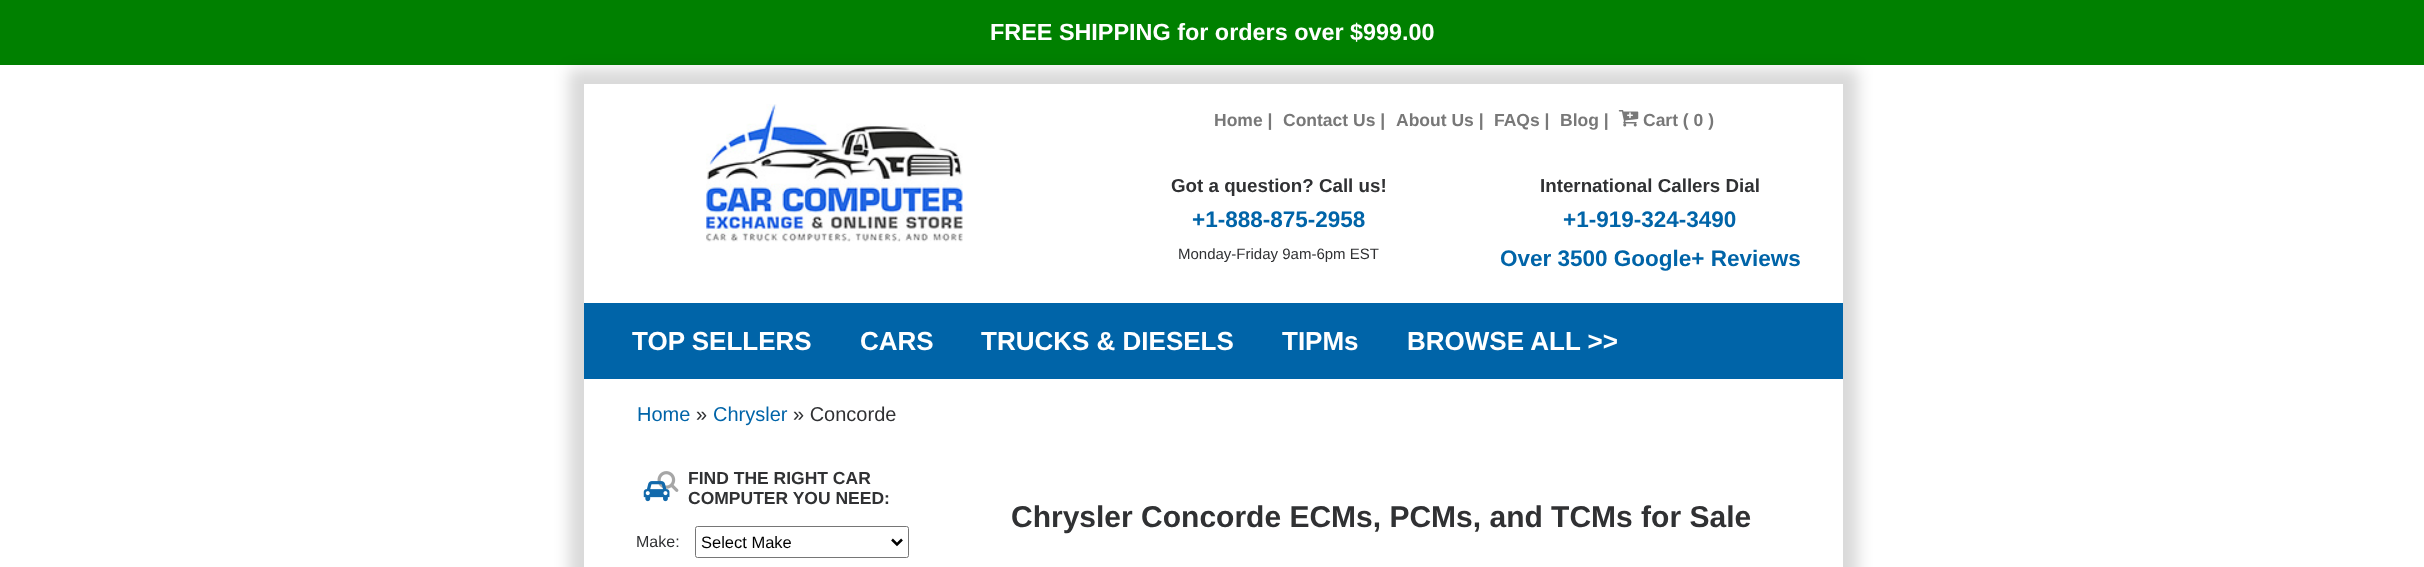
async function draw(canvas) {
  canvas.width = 2424;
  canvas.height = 567;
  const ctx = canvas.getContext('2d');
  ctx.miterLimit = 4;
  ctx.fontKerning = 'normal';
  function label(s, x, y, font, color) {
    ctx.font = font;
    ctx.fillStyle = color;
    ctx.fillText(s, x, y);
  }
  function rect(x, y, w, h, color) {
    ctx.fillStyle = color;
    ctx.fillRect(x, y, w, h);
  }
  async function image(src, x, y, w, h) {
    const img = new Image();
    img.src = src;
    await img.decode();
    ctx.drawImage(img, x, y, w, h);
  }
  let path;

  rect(0, 0, 2424, 567, '#fff');
  rect(0, 0, 2424, 65, '#008000');
  label('FREE SHIPPING for orders over $999.00', 990, 40, 'bold 23.4px Liberation Sans', '#fff');
  ctx.save();
  path = new Path2D('M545 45H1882V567H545ZM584 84H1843V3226H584Z');
  ctx.clip(path, 'evenodd');
  ctx.fillStyle = '#00000026';
  ctx.filter = 'blur(7.5px)';
  ctx.beginPath();
  ctx.rect(569, 69, 1289, 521);
  ctx.fill();
  ctx.filter = 'none';
  ctx.restore();
  await image('assets/img1.png', 706, 104, 257, 138);
  label('Home |', 1214, 126, 'bold 17.5px Liberation Sans', '#787878');
  label('Contact Us |', 1283, 126, 'bold 17.5px Liberation Sans', '#787878');
  label('About Us |', 1396, 126, 'bold 17.5px Liberation Sans', '#787878');
  label('FAQs |', 1494, 126, 'bold 17.5px Liberation Sans', '#787878');
  label('Blog |', 1560, 126, 'bold 17.5px Liberation Sans', '#787878');
  await image('assets/img2.png', 1618, 110, 21, 17);
  label('Cart ( 0 )', 1643, 126, 'bold 17.5px Liberation Sans', '#787878');
  label('Got a question? Call us!', 1171, 192, 'bold 18.75px Liberation Sans', '#303133');
  label('+1-888-875-2958', 1192, 227, 'bold 22.5px Liberation Sans', '#0064a8');
  label('Monday-Friday 9am-6pm EST', 1178, 259, '15px Liberation Sans', '#303133');
  label('International Callers Dial', 1540, 192, 'bold 18.75px Liberation Sans', '#303133');
  label('+1-919-324-3490', 1563, 227, 'bold 22.5px Liberation Sans', '#0064a8');
  label('Over 3500 Google+ Reviews', 1500, 266, 'bold 22.5px Liberation Sans', '#0064a8');
  rect(584, 303, 1259, 76, '#0064a8');
  label('TOP SELLERS', 632, 350, 'bold 26px Liberation Sans', '#fff');
  label('CARS', 860, 350, 'bold 26px Liberation Sans', '#fff');
  label('TRUCKS & DIESELS', 981, 350, 'bold 26px Liberation Sans', '#fff');
  label('TIPMs', 1282, 350, 'bold 26px Liberation Sans', '#fff');
  label('BROWSE ALL >>', 1407, 350, 'bold 26px Liberation Sans', '#fff');
  label('Home', 637, 421, '20px Liberation Sans', '#0064a8');
  label('»', 696, 421, '20px Liberation Sans', '#303133');
  label('Chrysler', 713, 421, '20px Liberation Sans', '#0064a8');
  label('» Concorde', 793, 421, '20px Liberation Sans', '#303133');
  await image('assets/img3.png', 657, 471, 22, 21);
  await image('assets/img4.png', 643, 481, 27, 21);
  label('FIND THE RIGHT CAR', 688, 484, 'bold 17.5px Liberation Sans', '#303133');
  label('COMPUTER YOU NEED:', 688, 504, 'bold 17.5px Liberation Sans', '#303133');
  label('Make:', 636, 547, '16px Liberation Sans', '#303133');
  ctx.beginPath();
  ctx.roundRect(695.5, 526.5, 213, 31, 2);
  ctx.strokeStyle = '#767676';
  ctx.stroke();
  path = new Path2D('M892 539.5L897 544.5L902 539.5');
  ctx.strokeStyle = '#000';
  ctx.lineWidth = 2.5;
  ctx.stroke(path);
  label('Select Make', 701, 548, '16.5px Liberation Sans', '#000');
  label('Chrysler Concorde ECMs, PCMs, and TCMs for Sale', 1011, 527, 'bold 30px Liberation Sans', '#303133');
}

draw(document.querySelector('canvas'));
